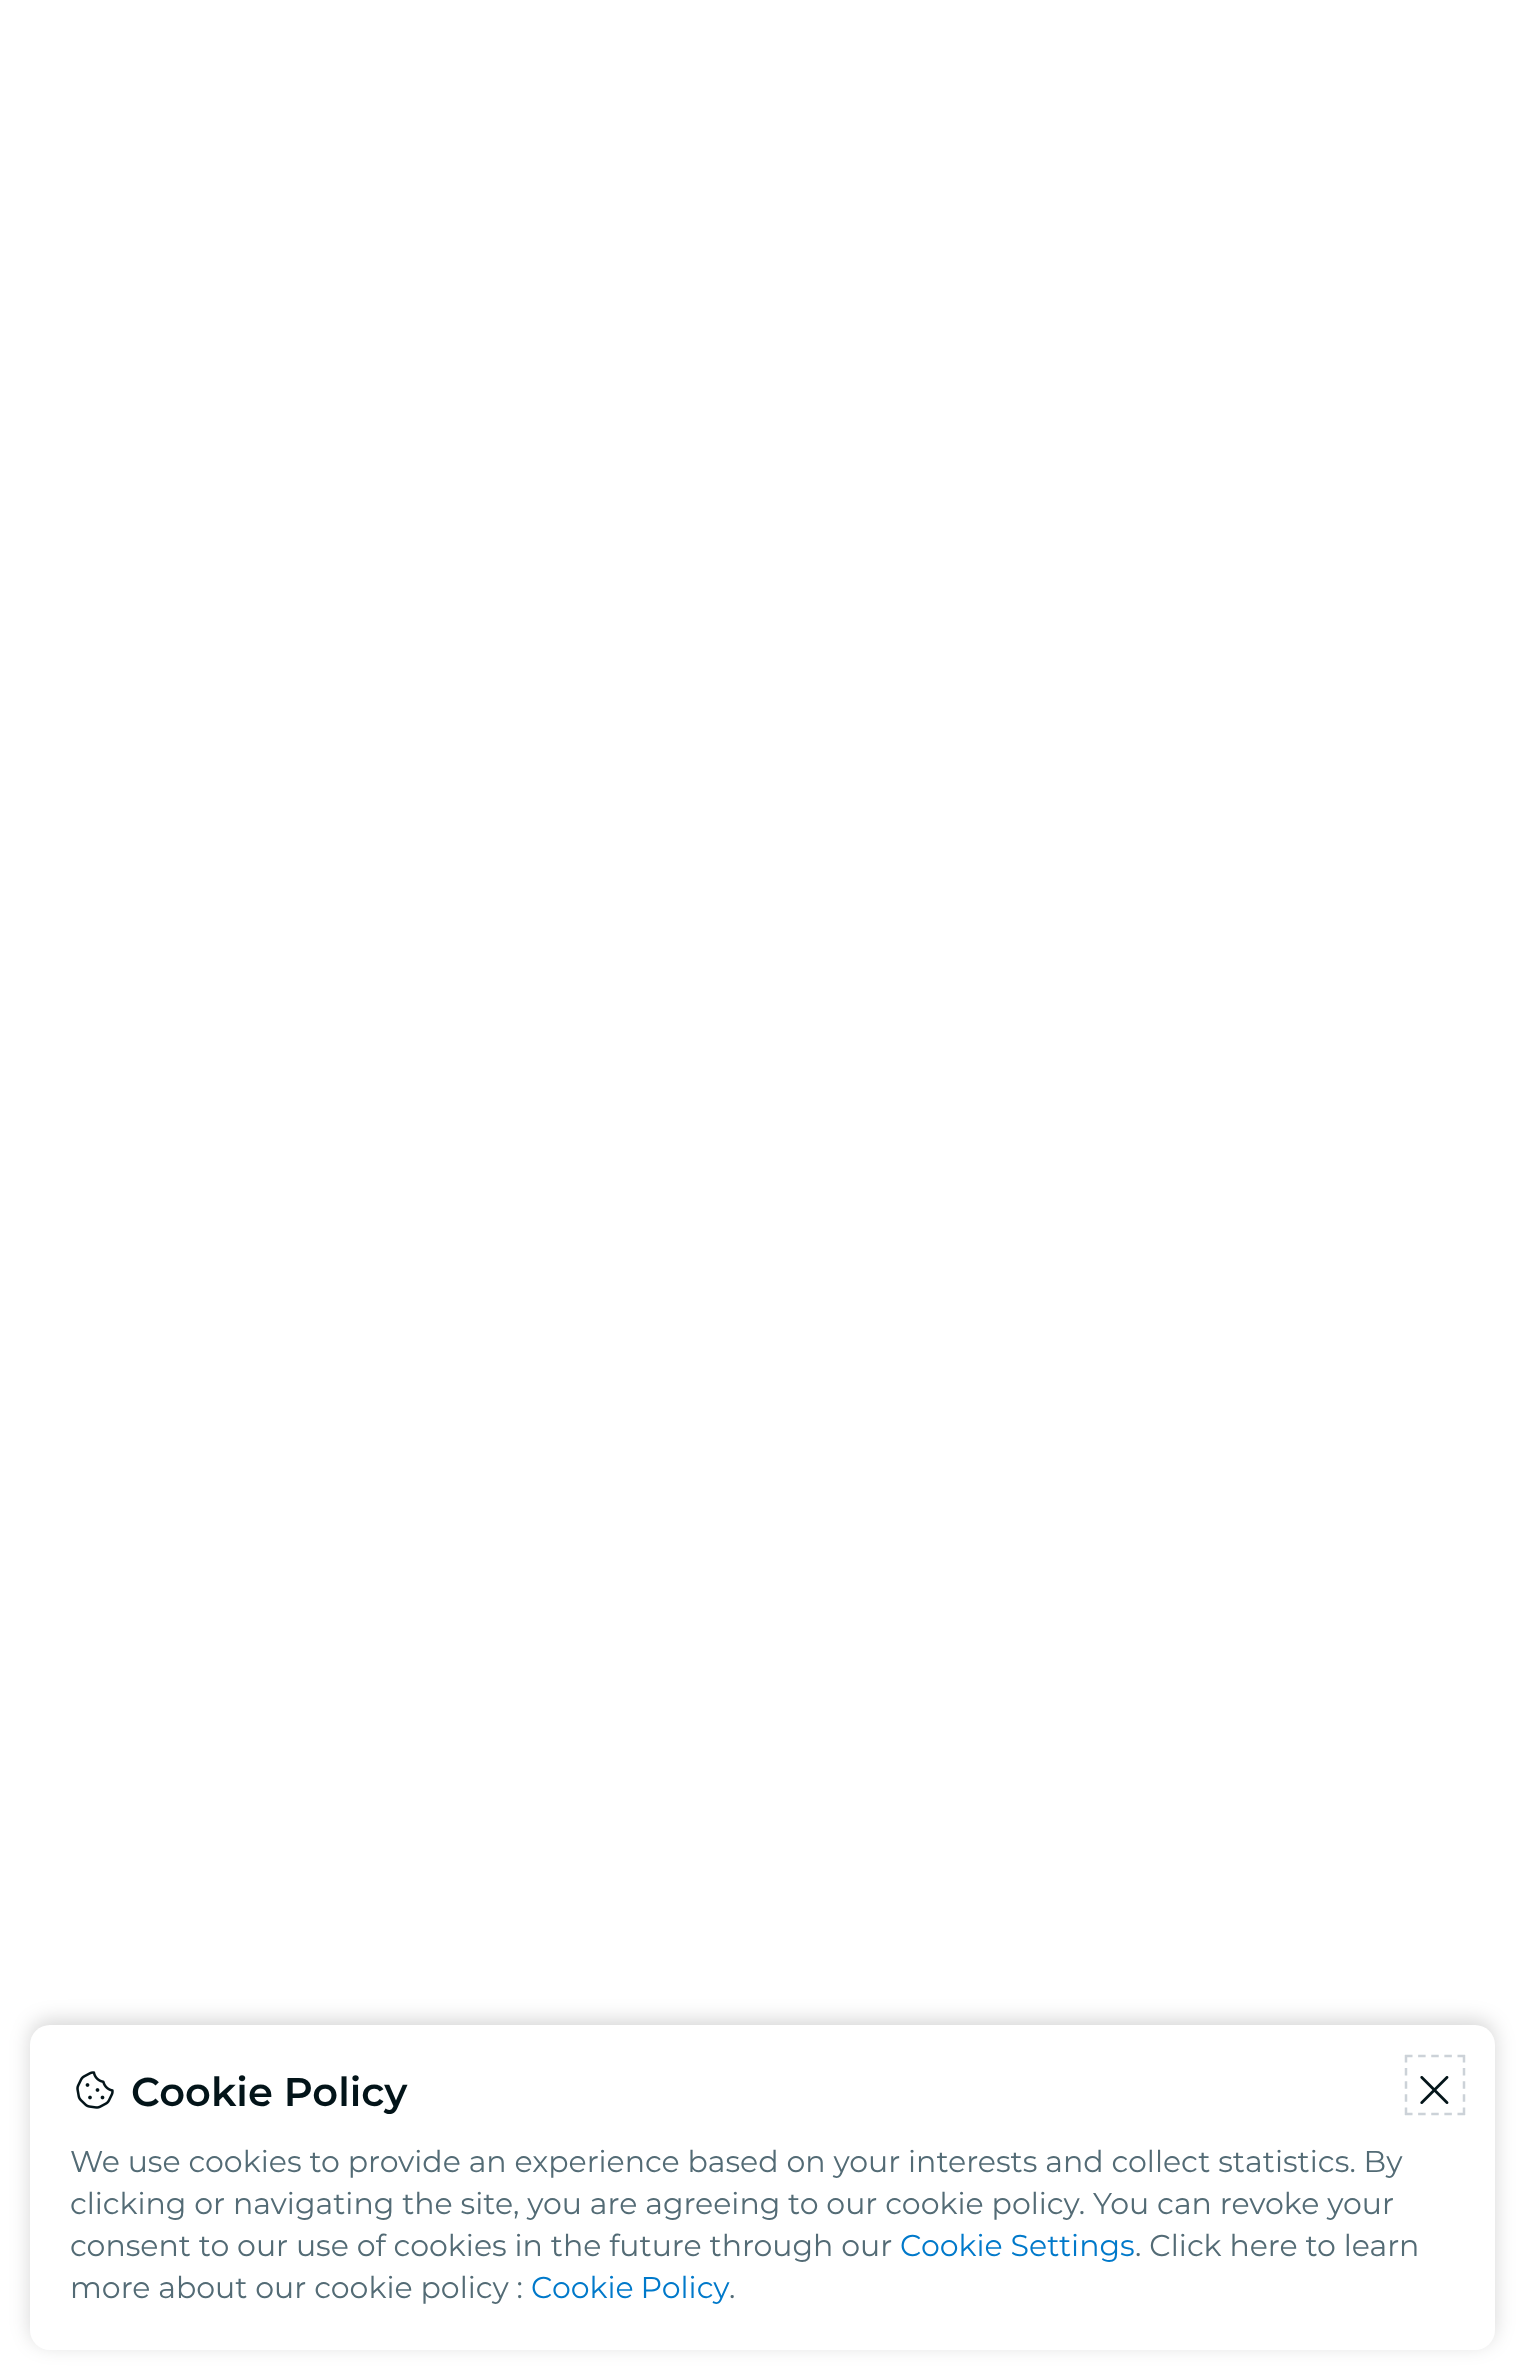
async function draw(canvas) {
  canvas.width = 1523;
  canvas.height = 2380;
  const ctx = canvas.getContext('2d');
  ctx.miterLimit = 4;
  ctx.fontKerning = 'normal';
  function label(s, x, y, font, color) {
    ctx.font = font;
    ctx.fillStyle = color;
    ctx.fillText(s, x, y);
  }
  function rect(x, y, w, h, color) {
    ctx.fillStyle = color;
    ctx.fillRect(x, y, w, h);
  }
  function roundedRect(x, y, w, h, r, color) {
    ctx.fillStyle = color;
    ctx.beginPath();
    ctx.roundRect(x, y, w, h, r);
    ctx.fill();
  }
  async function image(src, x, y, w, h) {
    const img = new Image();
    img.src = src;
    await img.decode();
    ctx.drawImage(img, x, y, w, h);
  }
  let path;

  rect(0, 0, 1523, 2380, '#fff');
  ctx.fillStyle = '#00000029';
  ctx.filter = 'blur(10px)';
  ctx.beginPath();
  ctx.roundRect(30, 2020, 1465, 325, 20);
  ctx.fill();
  ctx.filter = 'none';
  roundedRect(30, 2025, 1465, 325, 20, '#fff');
  await image('assets/img1.png', 76, 2071, 38, 38);
  label('Cookie Policy', 131, 2106, '600 40px Montserrat', '#031419');
  label('We use cookies to provide an experience based on your interests and collect statistics. By', 70, 2172, '30px Montserrat', '#536b75');
  label('clicking or navigating the site, you are agreeing to our cookie policy. You can revoke your', 70, 2214, '30px Montserrat', '#536b75');
  label('consent to our use of cookies in the future through our', 70, 2256, '30px Montserrat', '#536b75');
  label('Cookie Settings', 900, 2256, '30px Montserrat', '#0079ca');
  label('. Click here to learn', 1135, 2256, '30px Montserrat', '#536b75');
  label('more about our cookie policy :', 70, 2298, '30px Montserrat', '#536b75');
  ctx.wordSpacing = '-1px';
  label('Cookie Policy', 531, 2298, '30px Montserrat', '#0079ca');
  ctx.wordSpacing = '0px';
  label('.', 729, 2298, '30px Montserrat', '#536b75');
  path = new Path2D('M1405 2056H1465M1464 2055V2115M1405 2114H1465M1406 2055V2115');
  ctx.strokeStyle = '#ccd2d8';
  ctx.lineWidth = 2.5;
  ctx.setLineDash([7.5, 5.62]);
  ctx.stroke(path);
  await image('assets/img2.png', 1420, 2076, 29, 28);
}

draw(document.querySelector('canvas'));
